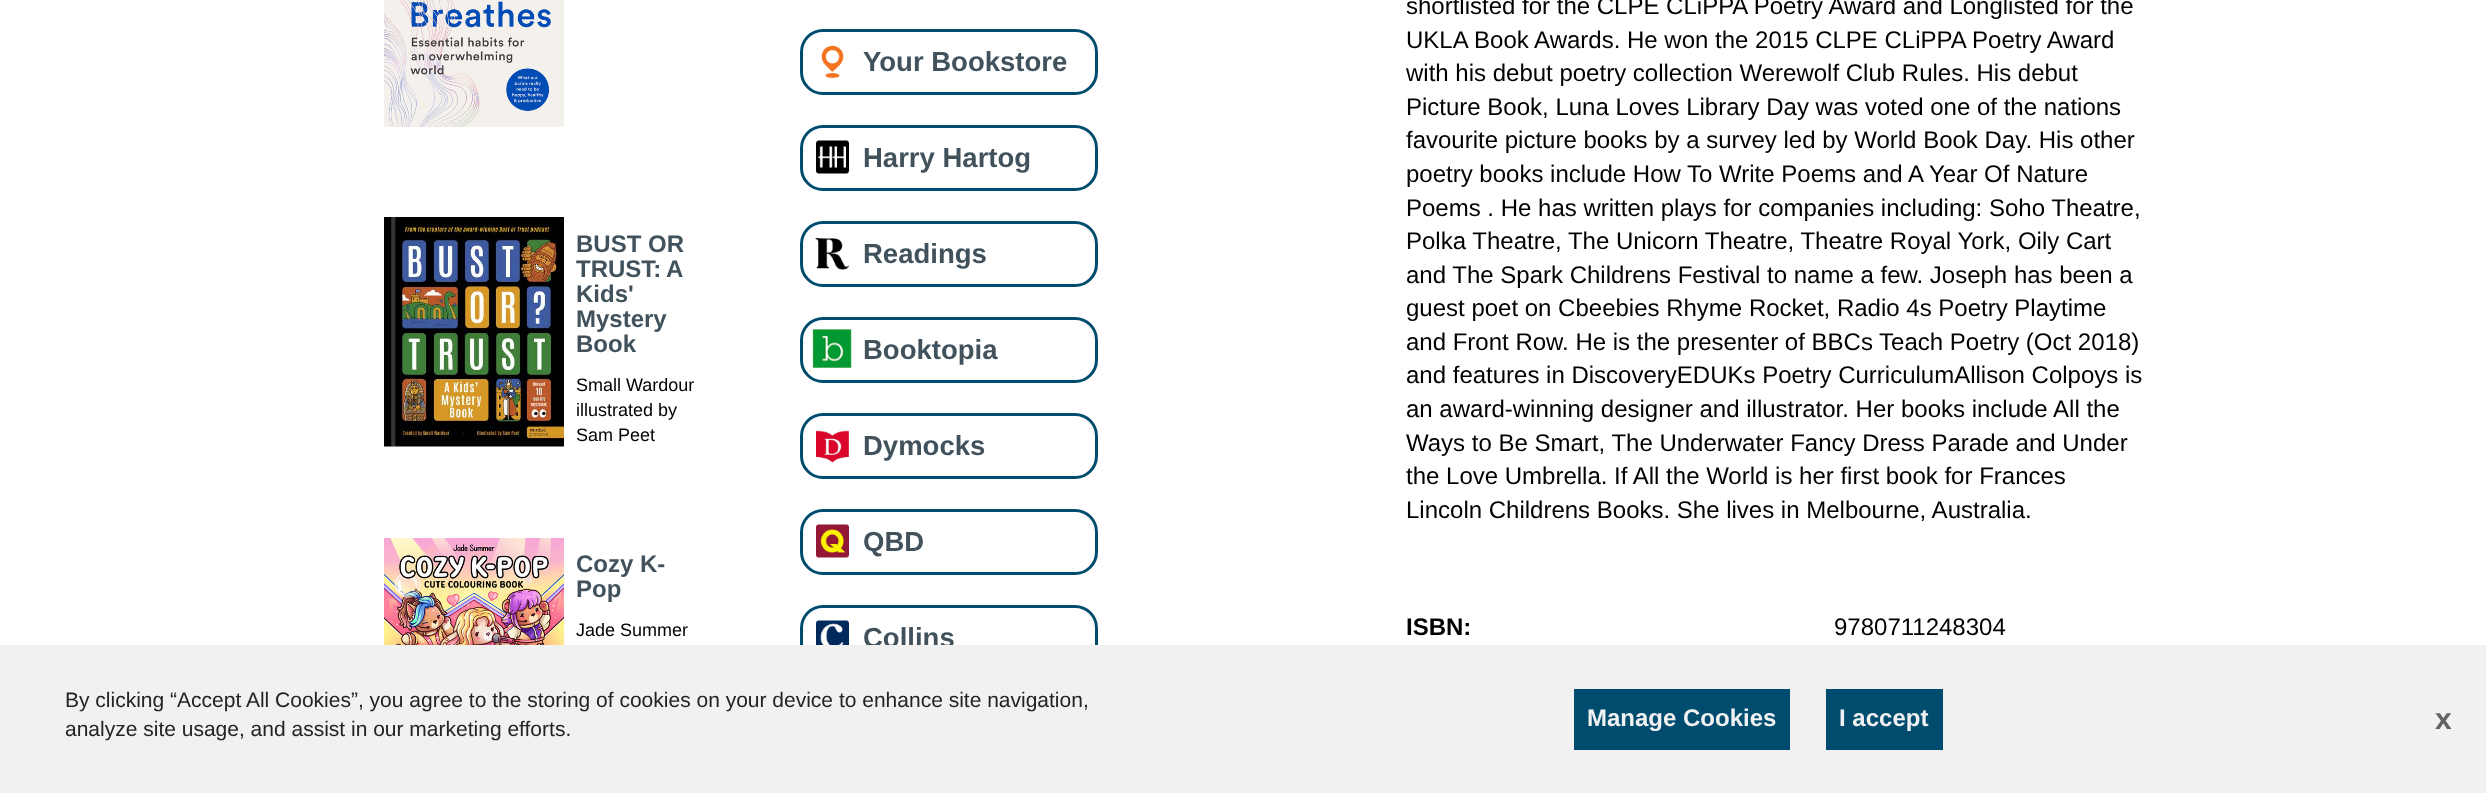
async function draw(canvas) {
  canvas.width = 2486;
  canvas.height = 793;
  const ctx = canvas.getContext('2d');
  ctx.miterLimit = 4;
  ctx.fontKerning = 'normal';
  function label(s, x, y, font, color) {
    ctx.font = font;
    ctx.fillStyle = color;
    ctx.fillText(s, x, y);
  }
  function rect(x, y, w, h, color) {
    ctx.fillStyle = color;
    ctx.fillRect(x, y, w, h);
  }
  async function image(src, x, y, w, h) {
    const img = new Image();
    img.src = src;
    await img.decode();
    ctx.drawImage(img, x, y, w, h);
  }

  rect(0, 0, 2486, 793, '#fff');
  await image('assets/img1.png', 384, 0, 180, 127);
  await image('assets/img2.png', 384, 217, 180, 230);
  label('BUST OR', 576, 252, 'bold 24px Liberation Sans', '#41525c');
  ctx.wordSpacing = '-1px';
  label('TRUST: A', 576, 277, 'bold 24px Liberation Sans', '#41525c');
  ctx.wordSpacing = '0px';
  label('Kids\'', 576, 302, 'bold 24px Liberation Sans', '#41525c');
  label('Mystery', 576, 327, 'bold 24px Liberation Sans', '#41525c');
  label('Book', 576, 352, 'bold 24px Liberation Sans', '#41525c');
  label('Small Wardour', 576, 391, '18px Liberation Sans', '#000');
  label('illustrated by', 576, 416, '18px Liberation Sans', '#000');
  label('Sam Peet', 576, 441, '18px Liberation Sans', '#000');
  await image('assets/img3.png', 384, 538, 180, 107);
  label('Cozy K-', 576, 572, 'bold 24px Liberation Sans', '#41525c');
  label('Pop', 576, 597, 'bold 24px Liberation Sans', '#41525c');
  label('Jade Summer', 576, 636, '18px Liberation Sans', '#000');
  ctx.beginPath();
  ctx.roundRect(801.5, 30.5, 295, 63, 21.5);
  ctx.strokeStyle = '#004c6f';
  ctx.lineWidth = 3;
  ctx.stroke();
  await image('assets/img4.png', 821, 45, 23, 34);
  label('Your Bookstore', 863, 71, 'bold 27.5px Liberation Sans', '#41525c');
  ctx.beginPath();
  ctx.roundRect(801.5, 126.5, 295, 63, 21.5);
  ctx.stroke();
  await image('assets/img5.png', 816, 140, 33, 34);
  label('Harry Hartog', 863, 167, 'bold 27.5px Liberation Sans', '#41525c');
  ctx.beginPath();
  ctx.roundRect(801.5, 222.5, 295, 63, 21.5);
  ctx.stroke();
  await image('assets/img6.png', 815, 238, 34, 32);
  label('Readings', 863, 263, 'bold 27.5px Liberation Sans', '#41525c');
  ctx.beginPath();
  ctx.roundRect(801.5, 318.5, 295, 63, 21.5);
  ctx.stroke();
  await image('assets/img7.png', 810, 329, 42, 43);
  label('Booktopia', 863, 359, 'bold 27.5px Liberation Sans', '#41525c');
  ctx.beginPath();
  ctx.roundRect(801.5, 414.5, 295, 63, 21.5);
  ctx.stroke();
  await image('assets/img8.png', 815, 430, 34, 33);
  label('Dymocks', 863, 455, 'bold 27.5px Liberation Sans', '#41525c');
  ctx.beginPath();
  ctx.roundRect(801.5, 510.5, 295, 63, 21.5);
  ctx.stroke();
  await image('assets/img9.png', 816, 524, 33, 34);
  label('QBD', 863, 551, 'bold 27.5px Liberation Sans', '#41525c');
  ctx.beginPath();
  ctx.roundRect(801.5, 606.5, 295, 63, 21.5);
  ctx.stroke();
  await image('assets/img10.png', 816, 620, 33, 25);
  label('Collins', 863, 647, 'bold 27.5px Liberation Sans', '#41525c');
  label('shortlisted for the CLPE CLiPPA Poetry Award and Longlisted for the', 1406, 14, '24px Liberation Sans', '#000');
  label('UKLA Book Awards. He won the 2015 CLPE CLiPPA Poetry Award', 1406, 48, '24px Liberation Sans', '#000');
  label('with his debut poetry collection Werewolf Club Rules. His debut', 1406, 81, '24px Liberation Sans', '#000');
  label('Picture Book, Luna Loves Library Day was voted one of the nations', 1406, 115, '24px Liberation Sans', '#000');
  label('favourite picture books by a survey led by World Book Day. His other', 1406, 148, '24px Liberation Sans', '#000');
  label('poetry books include How To Write Poems and A Year Of Nature', 1406, 182, '24px Liberation Sans', '#000');
  label('Poems . He has written plays for companies including: Soho Theatre,', 1406, 216, '24px Liberation Sans', '#000');
  label('Polka Theatre, The Unicorn Theatre, Theatre Royal York, Oily Cart', 1406, 249, '24px Liberation Sans', '#000');
  label('and The Spark Childrens Festival to name a few. Joseph has been a', 1406, 283, '24px Liberation Sans', '#000');
  label('guest poet on Cbeebies Rhyme Rocket, Radio 4s Poetry Playtime', 1406, 316, '24px Liberation Sans', '#000');
  label('and Front Row. He is the presenter of BBCs Teach Poetry (Oct 2018)', 1406, 350, '24px Liberation Sans', '#000');
  label('and features in DiscoveryEDUKs Poetry CurriculumAllison Colpoys is', 1406, 383, '24px Liberation Sans', '#000');
  label('an award-winning designer and illustrator. Her books include All the', 1406, 417, '24px Liberation Sans', '#000');
  label('Ways to Be Smart, The Underwater Fancy Dress Parade and Under', 1406, 451, '24px Liberation Sans', '#000');
  label('the Love Umbrella. If All the World is her first book for Frances', 1406, 484, '24px Liberation Sans', '#000');
  label('Lincoln Childrens Books. She lives in Melbourne, Australia.', 1406, 518, '24px Liberation Sans', '#000');
  label('ISBN:', 1406, 635, 'bold 24px Liberation Sans', '#000');
  label('9780711248304', 1834, 635, '24px Liberation Sans', '#000');
  rect(0, 645, 2486, 148, '#f1f1f1');
  label('By clicking “Accept All Cookies”, you agree to the storing of cookies on your device to enhance site navigation,', 65, 707, '21px Liberation Sans', '#232323');
  label('analyze site usage, and assist in our marketing efforts.', 65, 736, '21px Liberation Sans', '#232323');
  rect(1574, 689, 216, 61, '#004c6f');
  label('Manage Cookies', 1587, 726, 'bold 24px Liberation Sans', '#f1f1f1');
  rect(1826, 689, 117, 61, '#004c6f');
  label('I accept', 1839, 726, 'bold 24px Liberation Sans', '#f1f1f1');
  label('x', 2435, 729, 'bold 30px Liberation Sans', '#636363');
}

draw(document.querySelector('canvas'));
